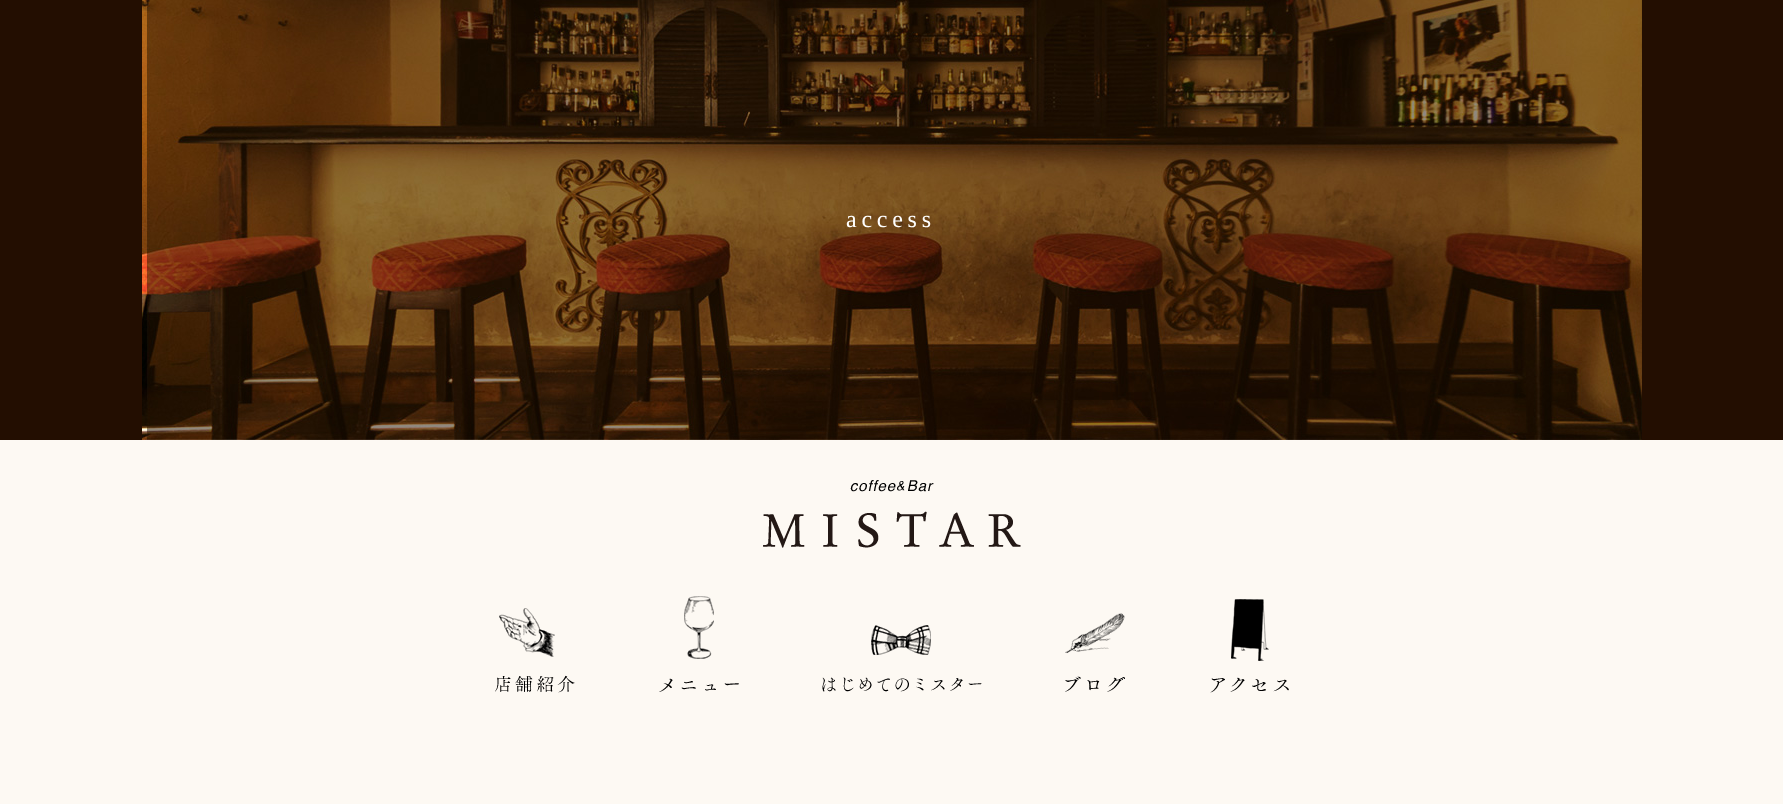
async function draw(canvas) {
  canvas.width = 1783;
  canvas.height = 804;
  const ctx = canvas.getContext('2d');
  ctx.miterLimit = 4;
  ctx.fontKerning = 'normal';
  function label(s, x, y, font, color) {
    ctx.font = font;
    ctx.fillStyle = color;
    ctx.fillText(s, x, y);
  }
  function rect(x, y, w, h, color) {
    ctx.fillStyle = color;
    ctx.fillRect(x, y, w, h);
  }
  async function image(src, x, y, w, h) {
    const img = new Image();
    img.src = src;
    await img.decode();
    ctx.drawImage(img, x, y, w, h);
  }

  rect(0, 0, 1783, 804, '#fdf9f3');
  rect(0, 0, 1783, 440, '#230e01');
  await image('assets/img1.png', 142, 0, 1500, 440);
  ctx.letterSpacing = '4.75px';
  label('access', 846, 227, '24px Liberation Serif', '#fff');
  await image('assets/img2.png', 763, 480, 258, 68);
  await image('assets/img3.png', 495, 608, 80, 85);
  await image('assets/img4.png', 659, 596, 80, 96);
  await image('assets/img5.png', 822, 625, 160, 67);
  await image('assets/img6.png', 1065, 613, 60, 79);
  await image('assets/img7.png', 1210, 599, 79, 94);
}

draw(document.querySelector('canvas'));
